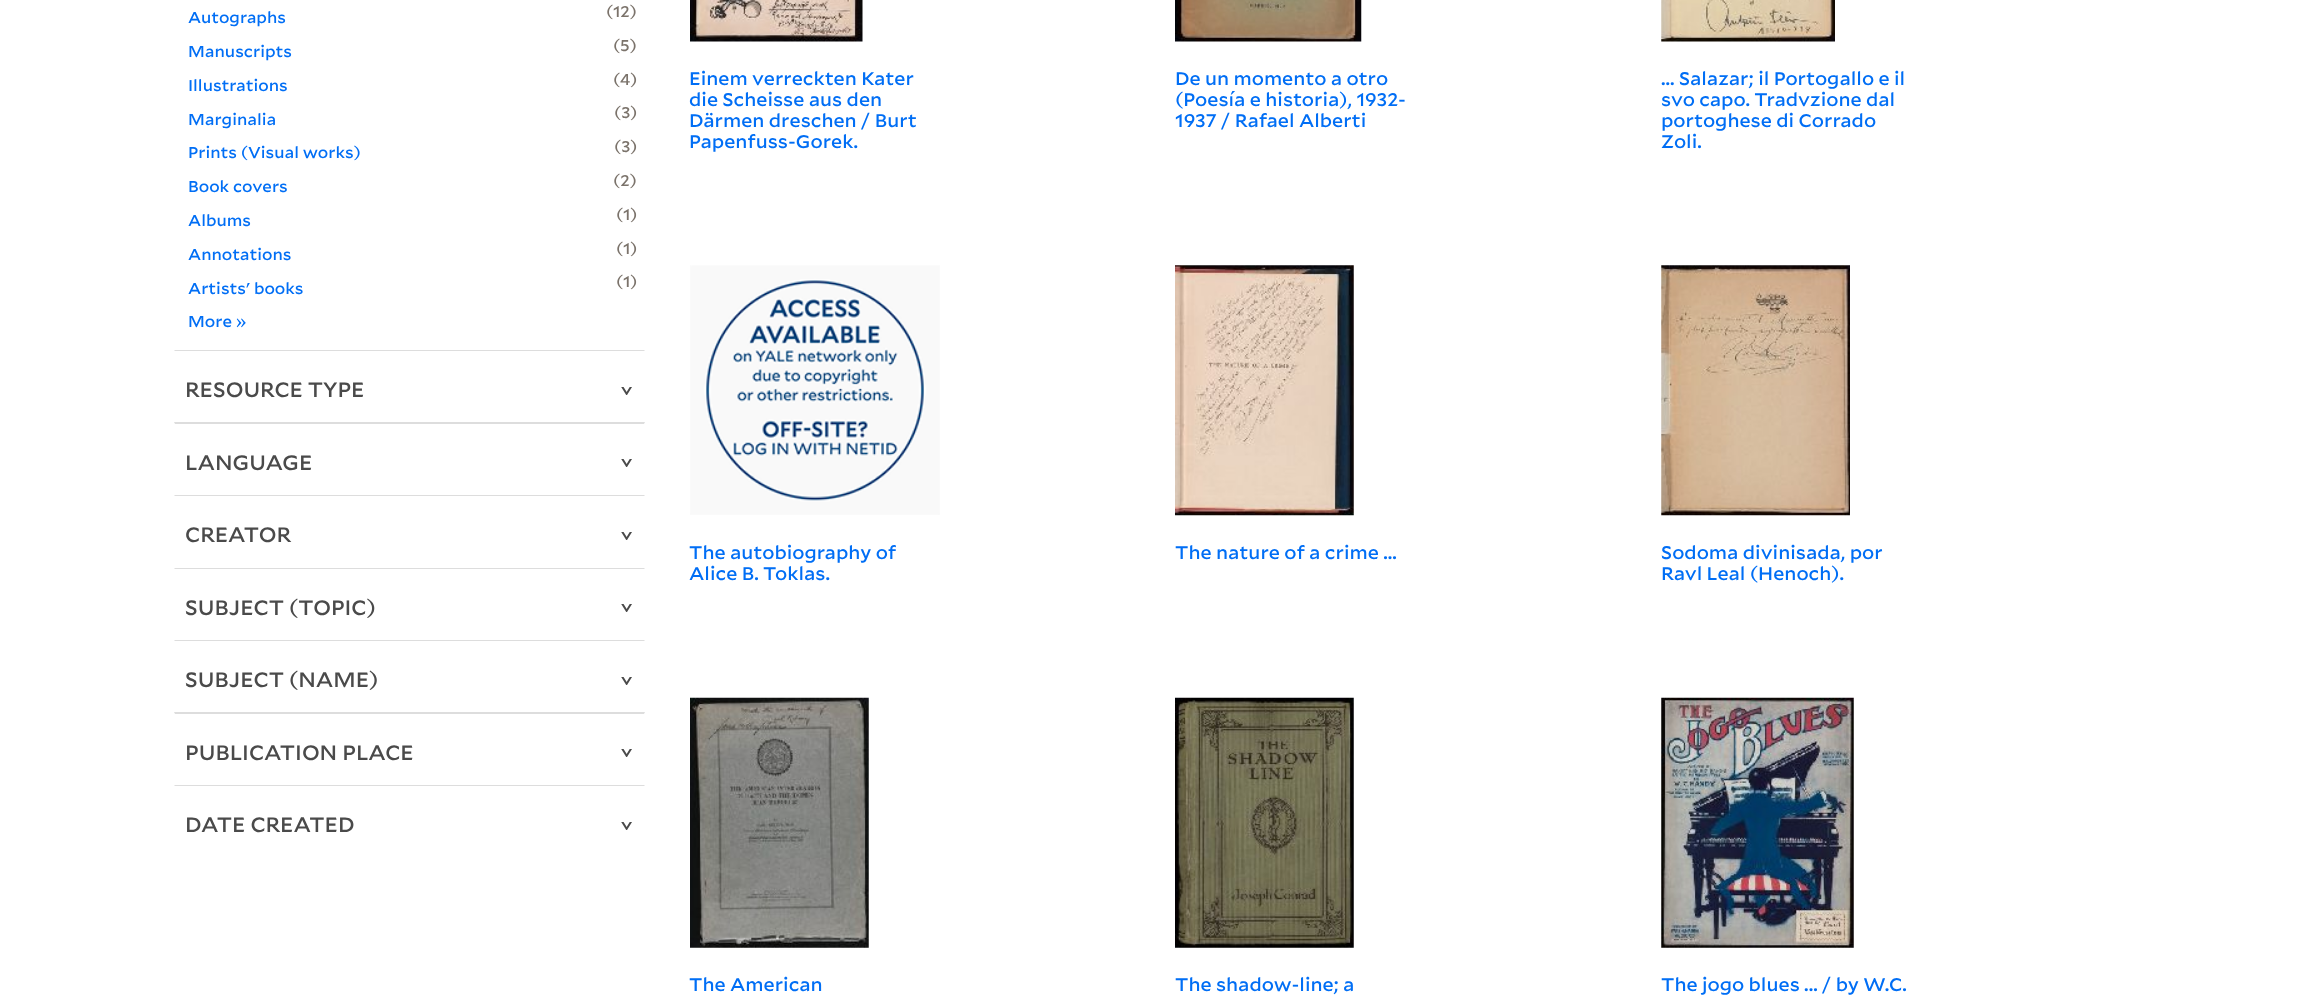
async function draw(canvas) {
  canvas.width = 2319;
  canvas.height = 1004;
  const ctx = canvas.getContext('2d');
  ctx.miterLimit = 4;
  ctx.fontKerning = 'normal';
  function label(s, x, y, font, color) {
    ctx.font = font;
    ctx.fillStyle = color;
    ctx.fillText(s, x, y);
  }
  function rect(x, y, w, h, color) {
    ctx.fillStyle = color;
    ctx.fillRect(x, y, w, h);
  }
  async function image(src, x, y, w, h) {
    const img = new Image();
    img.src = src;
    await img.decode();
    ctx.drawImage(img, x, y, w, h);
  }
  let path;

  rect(0, 0, 2319, 1004, '#fff');
  label('Autographs', 188, 23, '500 15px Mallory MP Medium', '#006ef5');
  label('(12)', 606, 17, '500 15px Mallory MP Medium', '#7b736b');
  label('Manuscripts', 188, 57, '500 15px Mallory MP Medium', '#006ef5');
  label('(5)', 613, 51, '500 15px Mallory MP Medium', '#7b736b');
  label('Illustrations', 188, 91, '500 15px Mallory MP Medium', '#006ef5');
  label('(', 613, 85, '500 15px Mallory MP Medium', '#7b736b');
  label('4)', 620, 85, '500 15px Mallory MP Medium', '#7b736b');
  label('Marginalia', 188, 125, '500 15px Mallory MP Medium', '#006ef5');
  label('(3)', 614, 118, '500 15px Mallory MP Medium', '#7b736b');
  label('Prints (Visual works)', 188, 158, '500 15px Mallory MP Medium', '#006ef5');
  label('(3)', 614, 152, '500 15px Mallory MP Medium', '#7b736b');
  label('Book covers', 188, 192, '500 15px Mallory MP Medium', '#006ef5');
  label('(2)', 613, 186, '500 15px Mallory MP Medium', '#7b736b');
  label('Albums', 188, 226, '500 15px Mallory MP Medium', '#006ef5');
  label('(1)', 616, 220, '500 15px Mallory MP Medium', '#7b736b');
  label('Annotations', 188, 260, '500 15px Mallory MP Medium', '#006ef5');
  label('(1)', 616, 254, '500 15px Mallory MP Medium', '#7b736b');
  label('Artists\' books', 188, 294, '500 15px Mallory MP Medium', '#006ef5');
  label('(1)', 616, 287, '500 15px Mallory MP Medium', '#7b736b');
  label('More »', 188, 327, '500 15px Mallory MP Medium', '#006ef5');
  ctx.fillStyle = '#ddd';
  path = new Path2D('M174 350H645L644 351H175Z');
  ctx.fill(path);
  label('RESOURCE TYPE', 185, 397, '500 20px Mallory MP Medium', '#4a4a4a');
  ctx.save();
  ctx.translate(633, 380);
  ctx.rotate(180 * Math.PI / 180);
  ctx.fillText('^', 0, 0);
  ctx.restore();
  ctx.fillStyle = '#ddd';
  path = new Path2D('M174 422H645L644 424H175Z');
  ctx.fill(path);
  label('LANGUAGE', 185, 470, '500 20px Mallory MP Medium', '#4a4a4a');
  ctx.save();
  ctx.translate(633, 452);
  ctx.rotate(180 * Math.PI / 180);
  ctx.fillText('^', 0, 0);
  ctx.restore();
  ctx.fillStyle = '#ddd';
  path = new Path2D('M174 495H645L644 496H175Z');
  ctx.fill(path);
  label('CREATOR', 185, 542, '500 20px Mallory MP Medium', '#4a4a4a');
  ctx.save();
  ctx.translate(633, 525);
  ctx.rotate(180 * Math.PI / 180);
  ctx.fillText('^', 0, 0);
  ctx.restore();
  ctx.fillStyle = '#ddd';
  path = new Path2D('M174 568H645L644 569H175Z');
  ctx.fill(path);
  label('SUBJECT (TOPIC)', 185, 615, '500 20px Mallory MP Medium', '#4a4a4a');
  ctx.save();
  ctx.translate(633, 597);
  ctx.rotate(180 * Math.PI / 180);
  ctx.fillText('^', 0, 0);
  ctx.restore();
  ctx.fillStyle = '#ddd';
  path = new Path2D('M174 640H645L644 641H175Z');
  ctx.fill(path);
  label('SUBJECT (NAME)', 185, 687, '500 20px Mallory MP Medium', '#4a4a4a');
  ctx.save();
  ctx.translate(633, 670);
  ctx.rotate(180 * Math.PI / 180);
  ctx.fillText('^', 0, 0);
  ctx.restore();
  ctx.fillStyle = '#ddd';
  path = new Path2D('M174 712H645L644 714H175Z');
  ctx.fill(path);
  label('PUBLICATION PLACE', 185, 760, '500 20px Mallory MP Medium', '#4a4a4a');
  ctx.save();
  ctx.translate(633, 742);
  ctx.rotate(180 * Math.PI / 180);
  ctx.fillText('^', 0, 0);
  ctx.restore();
  ctx.fillStyle = '#ddd';
  path = new Path2D('M174 785H645L644 786H175Z');
  ctx.fill(path);
  label('DATE CREATED', 185, 832, '500 20px Mallory MP Medium', '#4a4a4a');
  ctx.save();
  ctx.translate(633, 815);
  ctx.rotate(180 * Math.PI / 180);
  ctx.fillText('^', 0, 0);
  ctx.restore();
  await image('assets/img1.png', 690, 0, 173, 42);
  label('Einem verreckten Kater', 689, 85, '500 17.5px Mallory MP Medium', '#006ef5');
  label('die Scheisse aus den', 689, 106, '500 17.5px Mallory MP Medium', '#006ef5');
  label('Därmen dreschen / Burt', 689, 127, '500 17.5px Mallory MP Medium', '#006ef5');
  label('Papenfuss-Gorek.', 689, 148, '500 17.5px Mallory MP Medium', '#006ef5');
  await image('assets/img2.png', 1175, 0, 187, 42);
  label('De un momento a otro', 1175, 85, '500 17.5px Mallory MP Medium', '#006ef5');
  label('(Poesía e historia), 1932-', 1175, 106, '500 17.5px Mallory MP Medium', '#006ef5');
  label('1937 / Rafael Alberti', 1175, 127, '500 17.5px Mallory MP Medium', '#006ef5');
  await image('assets/img3.png', 1661, 0, 174, 42);
  label('... Salazar; il Portogallo e il', 1661, 85, '500 17.5px Mallory MP Medium', '#006ef5');
  label('svo capo. Tradvzione dal', 1661, 106, '500 17.5px Mallory MP Medium', '#006ef5');
  label('portoghese di Corrado', 1661, 127, '500 17.5px Mallory MP Medium', '#006ef5');
  label('Zoli.', 1661, 148, '500 17.5px Mallory MP Medium', '#006ef5');
  await image('assets/img4.png', 690, 265, 250, 250);
  label('The autobiography of', 689, 559, '500 17.5px Mallory MP Medium', '#006ef5');
  label('Alice B. Toklas.', 689, 580, '500 17.5px Mallory MP Medium', '#006ef5');
  await image('assets/img5.png', 1175, 265, 179, 251);
  label('The nature of a crime ...', 1175, 559, '500 17.5px Mallory MP Medium', '#006ef5');
  await image('assets/img6.png', 1661, 265, 189, 251);
  label('Sodoma divinisada, por', 1661, 559, '500 17.5px Mallory MP Medium', '#006ef5');
  label('Ravl Leal (Henoch).', 1661, 580, '500 17.5px Mallory MP Medium', '#006ef5');
  await image('assets/img7.png', 690, 697, 179, 251);
  label('The American', 689, 991, '500 17.5px Mallory MP Medium', '#006ef5');
  await image('assets/img8.png', 1175, 697, 179, 251);
  label('The shadow-line; a', 1175, 991, '500 17.5px Mallory MP Medium', '#006ef5');
  await image('assets/img9.png', 1661, 697, 193, 251);
  label('The jogo blues ... / by W.C.', 1661, 991, '500 17.5px Mallory MP Medium', '#006ef5');
}

draw(document.querySelector('canvas'));
